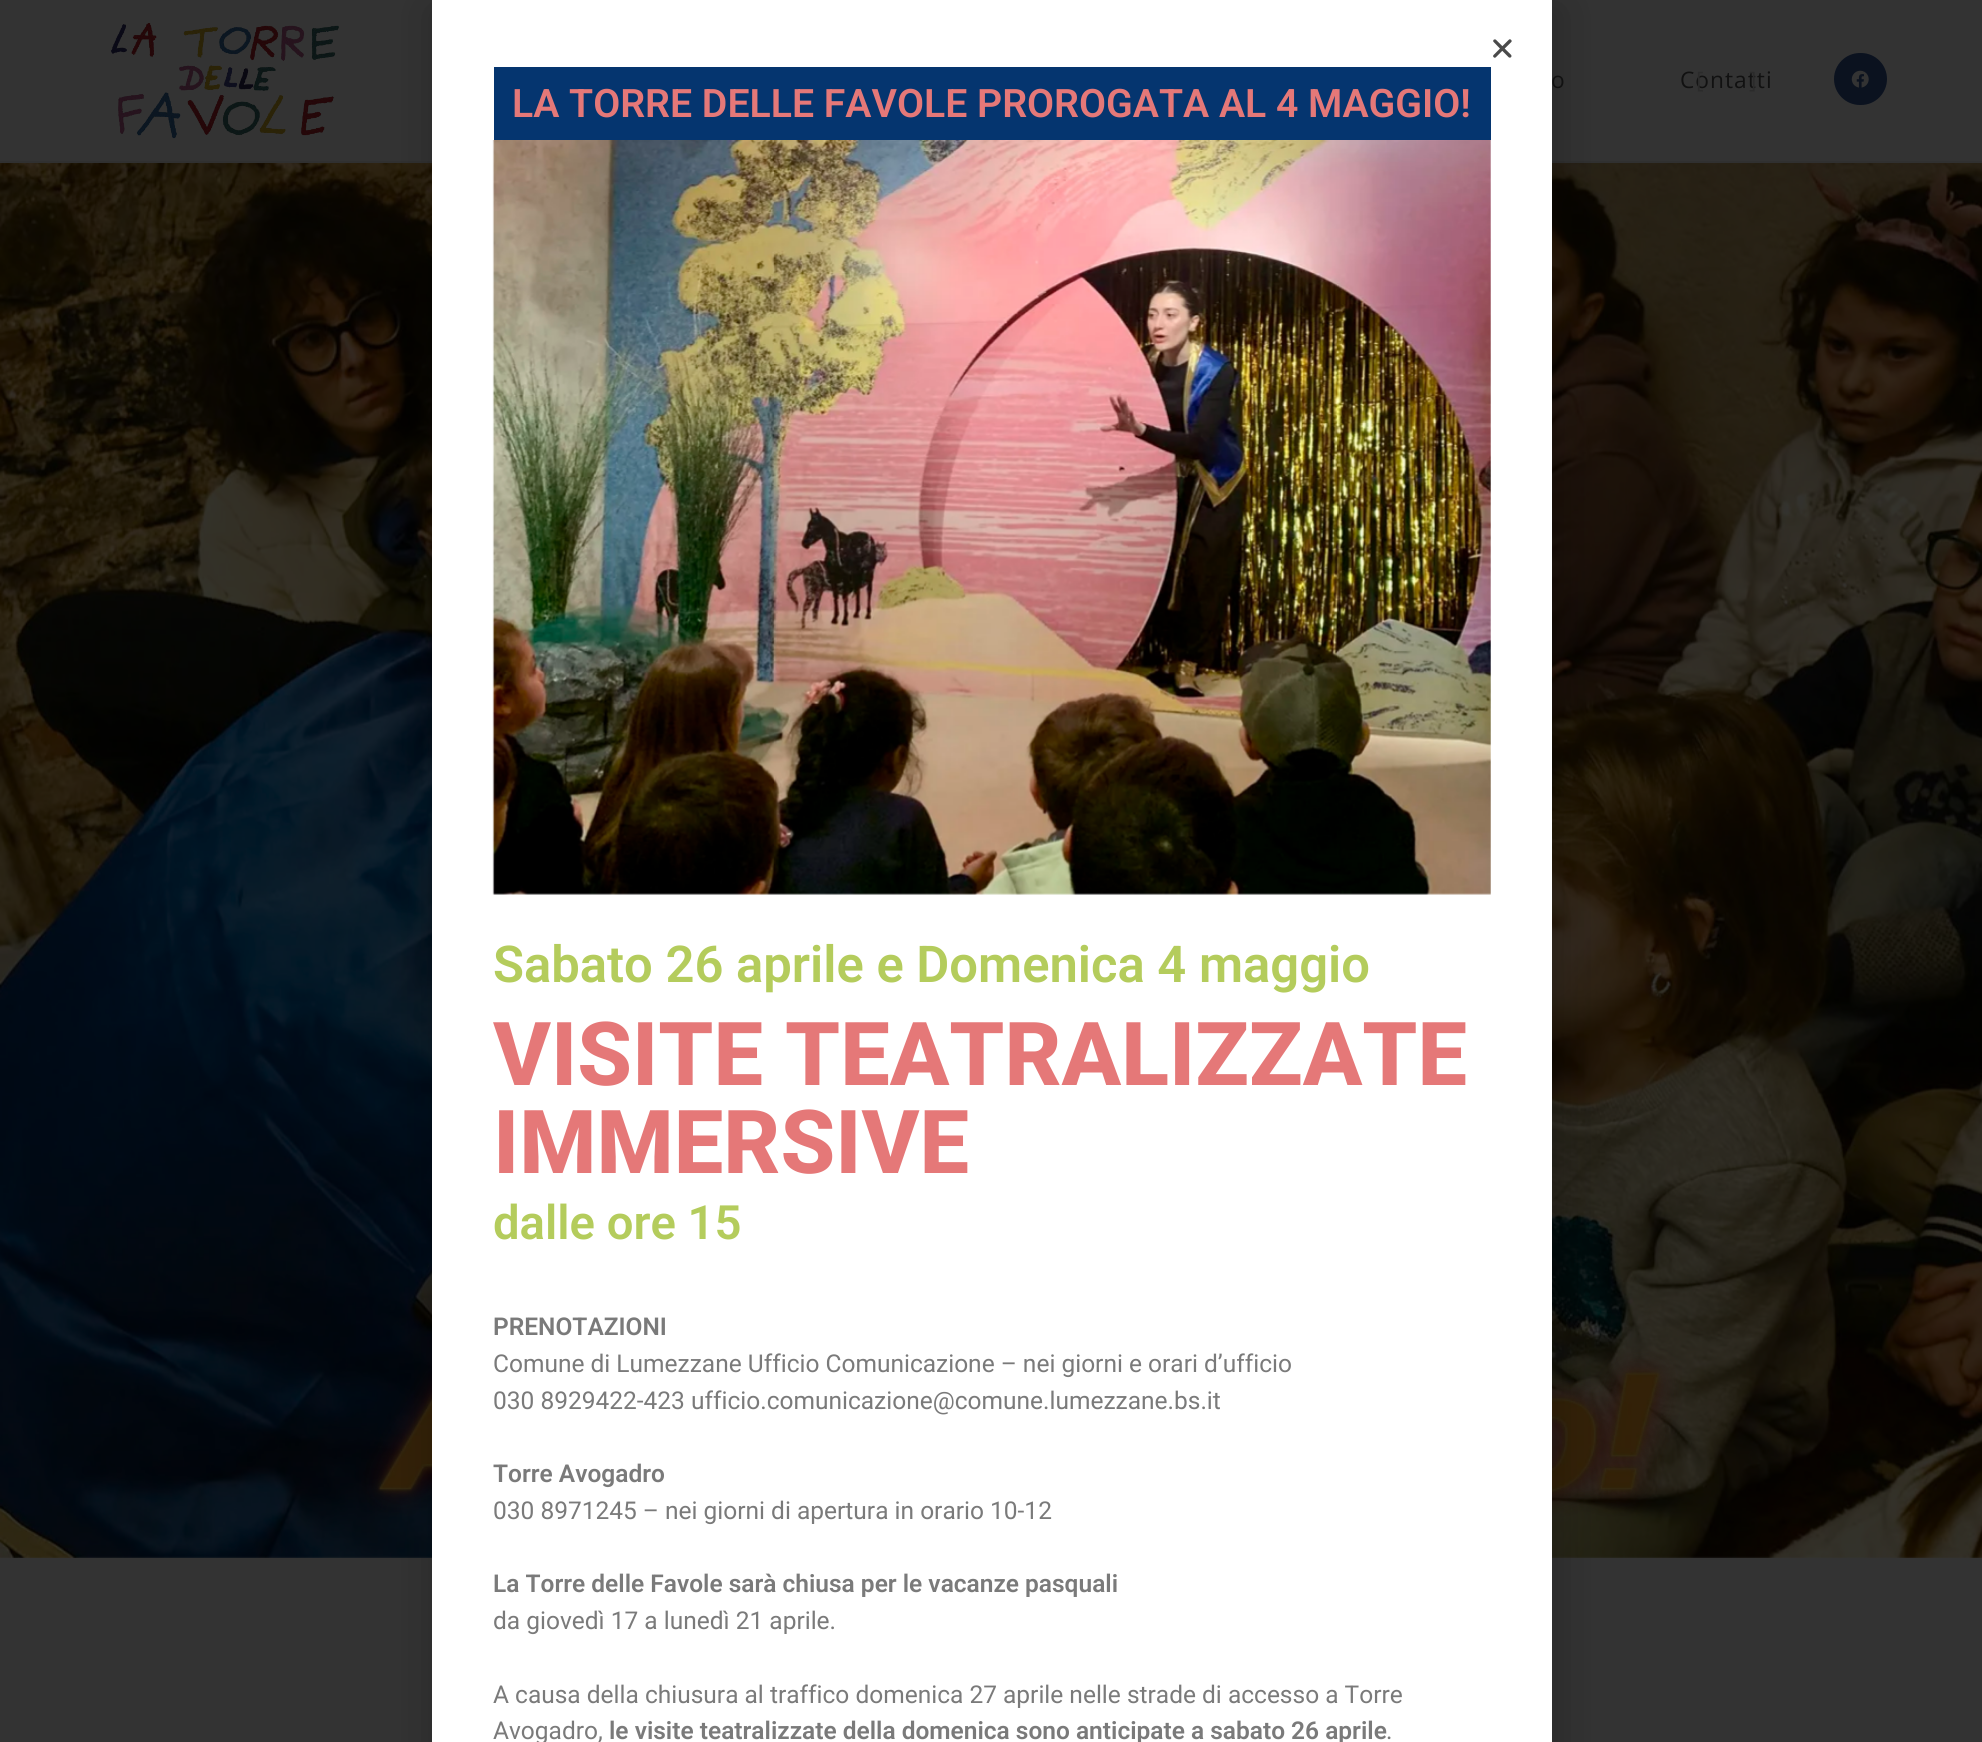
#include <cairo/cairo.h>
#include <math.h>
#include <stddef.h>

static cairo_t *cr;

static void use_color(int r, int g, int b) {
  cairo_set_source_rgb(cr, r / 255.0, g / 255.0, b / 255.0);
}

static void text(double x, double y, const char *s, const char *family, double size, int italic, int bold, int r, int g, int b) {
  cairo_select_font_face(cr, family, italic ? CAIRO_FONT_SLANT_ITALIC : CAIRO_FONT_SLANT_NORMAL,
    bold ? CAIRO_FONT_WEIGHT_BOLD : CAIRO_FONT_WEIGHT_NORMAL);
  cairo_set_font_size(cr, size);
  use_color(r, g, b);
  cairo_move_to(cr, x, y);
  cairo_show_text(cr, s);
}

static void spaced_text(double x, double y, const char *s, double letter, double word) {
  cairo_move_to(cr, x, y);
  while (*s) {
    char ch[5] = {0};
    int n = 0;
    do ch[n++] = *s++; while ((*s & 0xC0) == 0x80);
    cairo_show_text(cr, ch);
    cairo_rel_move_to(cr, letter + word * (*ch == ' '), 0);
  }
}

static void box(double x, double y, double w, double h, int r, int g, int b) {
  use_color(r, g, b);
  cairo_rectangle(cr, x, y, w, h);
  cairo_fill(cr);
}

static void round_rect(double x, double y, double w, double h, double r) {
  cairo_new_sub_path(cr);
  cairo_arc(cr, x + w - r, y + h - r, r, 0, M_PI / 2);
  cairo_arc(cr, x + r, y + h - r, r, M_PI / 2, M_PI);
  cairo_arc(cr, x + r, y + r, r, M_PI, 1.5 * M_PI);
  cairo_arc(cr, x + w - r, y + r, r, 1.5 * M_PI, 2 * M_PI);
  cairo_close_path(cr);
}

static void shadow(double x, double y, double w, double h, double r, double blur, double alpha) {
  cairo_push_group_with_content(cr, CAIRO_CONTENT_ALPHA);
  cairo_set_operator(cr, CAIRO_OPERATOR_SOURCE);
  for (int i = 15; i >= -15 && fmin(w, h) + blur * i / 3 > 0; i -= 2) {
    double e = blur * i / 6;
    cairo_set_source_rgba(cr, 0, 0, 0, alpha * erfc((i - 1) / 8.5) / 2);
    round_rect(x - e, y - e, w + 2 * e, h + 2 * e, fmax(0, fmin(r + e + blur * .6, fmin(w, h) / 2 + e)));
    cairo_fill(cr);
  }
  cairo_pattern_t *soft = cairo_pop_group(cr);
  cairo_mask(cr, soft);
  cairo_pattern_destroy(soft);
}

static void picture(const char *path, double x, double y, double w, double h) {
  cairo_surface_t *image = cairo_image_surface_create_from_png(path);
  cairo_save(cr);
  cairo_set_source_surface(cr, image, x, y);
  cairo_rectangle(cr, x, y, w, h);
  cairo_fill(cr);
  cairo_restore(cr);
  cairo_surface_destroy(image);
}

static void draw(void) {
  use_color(51, 51, 51);
  cairo_paint(cr);
  box(0, 161, 1982, 2, 48, 48, 48);
  picture("img_01.png", 111, 23, 228, 116);
  use_color(11, 18, 31);
  round_rect(1834, 53, 53, 52, 26);
  cairo_fill(cr);
  picture("img_02.png", 1851, 70, 18, 18);
  picture("img_03.png", 0, 163, 1982, 1395);
  picture("img_04.png", 359, 1346, 1323, 171);
  use_color(0, 0, 0);
  shadow(431, 9, 1130, 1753, 0, 20, 0.2);
  box(432, 0, 1120, 1742, 255, 255, 255);
  picture("img_05.png", 1493, 39, 19, 19);
  box(494, 67, 997, 73, 5, 53, 111);
  picture("img_06.png", 492, 140, 999, 755);
  cairo_select_font_face(cr, "Open Sans", CAIRO_FONT_SLANT_NORMAL, CAIRO_FONT_WEIGHT_NORMAL);
  cairo_set_font_size(cr, 22.75);
  use_color(17, 17, 17);
  spaced_text(1551, 88, "o", 1, 0);
  spaced_text(1680, 88, "Contatti", 1, 0);
  use_color(43, 43, 43);
  spaced_text(1696, 88, "[", 1, 0);
  spaced_text(1749, 88, "]", 1, 0);
  text(512, 117, "LA TORRE DELLE FAVOLE PROROGATA AL 4 MAGGIO!", "Roboto SemiBold", 39.2, 0, 0, 229, 120, 120);
  text(493, 982, "Sabato 26 aprile e Domenica 4 maggio", "Roboto SemiBold", 50.75, 0, 0, 180, 204, 92);
  text(493, 1085, "VISITE TEATRALIZZATE", "Roboto ExtraBold", 88.25, 0, 0, 229, 120, 120);
  text(493, 1173, "IMMERSIVE", "Roboto ExtraBold", 88.25, 0, 0, 229, 120, 120);
  text(493, 1239, "dalle ore 15", "Roboto SemiBold", 47.25, 0, 0, 180, 204, 92);
  text(493, 1335, "PRENOTAZIONI", "Roboto SemiBold", 24.5, 0, 0, 122, 122, 122);
  text(493, 1372, "Comune di Lumezzane Ufficio Comunicazione – nei giorni e orari d’ufficio", "Roboto", 24.5, 0, 0, 122, 122, 122);
  text(493, 1409, "030 8929422-423 ufficio.comunicazione@comune.lumezzane.bs.it", "Roboto", 24.5, 0, 0, 122, 122, 122);
  text(493, 1482, "Torre Avogadro", "Roboto SemiBold", 24.5, 0, 0, 122, 122, 122);
  text(493, 1519, "030 8971245 – nei giorni di apertura in orario 10-12", "Roboto", 24.5, 0, 0, 122, 122, 122);
  text(493, 1592, "La Torre delle Favole sarà chiusa per le vacanze pasquali", "Roboto SemiBold", 24.5, 0, 0, 122, 122, 122);
  text(493, 1629, "da giovedì 17 a lunedì 21 aprile.", "Roboto", 24.5, 0, 0, 122, 122, 122);
  text(493, 1703, "A causa della chiusura al traffico domenica 27 aprile nelle strade di accesso a Torre", "Roboto", 24.5, 0, 0, 122, 122, 122);
  text(493, 1739, "Avogadro,", "Roboto", 24.5, 0, 0, 122, 122, 122);
  text(609, 1739, "le visite teatralizzate della domenica sono anticipate a sabato 26 aprile", "Roboto SemiBold", 24.5, 0, 0, 122, 122, 122);
  text(1386, 1739, ".", "Roboto", 24.5, 0, 0, 122, 122, 122);
}

int main(void) {
  cairo_surface_t *surface = cairo_image_surface_create(CAIRO_FORMAT_RGB24, 1982, 1742);
  cr = cairo_create(surface);
  cairo_font_options_t *options = cairo_font_options_create();
  cairo_font_options_set_hint_metrics(options, CAIRO_HINT_METRICS_OFF);
  cairo_font_options_set_hint_style(options, CAIRO_HINT_STYLE_NONE);
  cairo_set_font_options(cr, options);
  cairo_set_miter_limit(cr, 4);
  draw();
  cairo_surface_write_to_png(surface, "out.png");
  cairo_font_options_destroy(options);
  cairo_destroy(cr);
  cairo_surface_destroy(surface);
  return 0;
}
